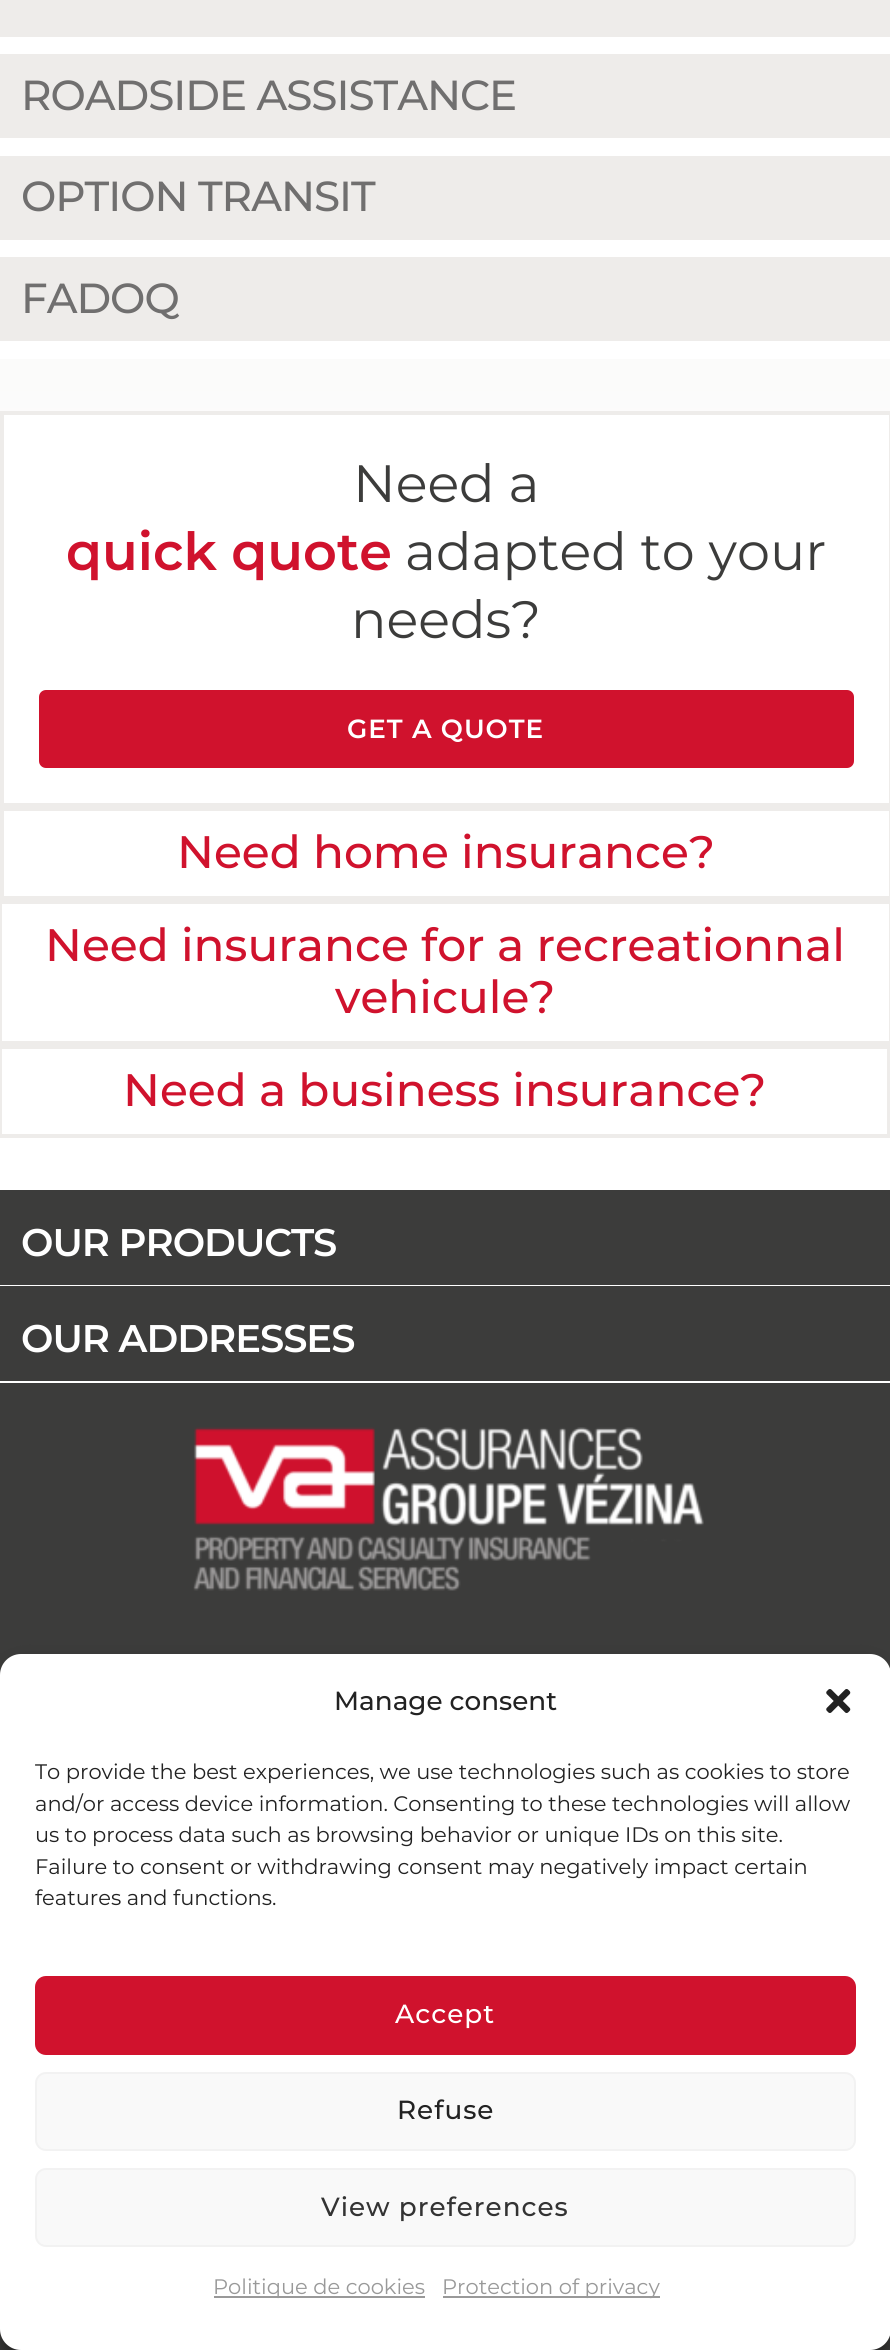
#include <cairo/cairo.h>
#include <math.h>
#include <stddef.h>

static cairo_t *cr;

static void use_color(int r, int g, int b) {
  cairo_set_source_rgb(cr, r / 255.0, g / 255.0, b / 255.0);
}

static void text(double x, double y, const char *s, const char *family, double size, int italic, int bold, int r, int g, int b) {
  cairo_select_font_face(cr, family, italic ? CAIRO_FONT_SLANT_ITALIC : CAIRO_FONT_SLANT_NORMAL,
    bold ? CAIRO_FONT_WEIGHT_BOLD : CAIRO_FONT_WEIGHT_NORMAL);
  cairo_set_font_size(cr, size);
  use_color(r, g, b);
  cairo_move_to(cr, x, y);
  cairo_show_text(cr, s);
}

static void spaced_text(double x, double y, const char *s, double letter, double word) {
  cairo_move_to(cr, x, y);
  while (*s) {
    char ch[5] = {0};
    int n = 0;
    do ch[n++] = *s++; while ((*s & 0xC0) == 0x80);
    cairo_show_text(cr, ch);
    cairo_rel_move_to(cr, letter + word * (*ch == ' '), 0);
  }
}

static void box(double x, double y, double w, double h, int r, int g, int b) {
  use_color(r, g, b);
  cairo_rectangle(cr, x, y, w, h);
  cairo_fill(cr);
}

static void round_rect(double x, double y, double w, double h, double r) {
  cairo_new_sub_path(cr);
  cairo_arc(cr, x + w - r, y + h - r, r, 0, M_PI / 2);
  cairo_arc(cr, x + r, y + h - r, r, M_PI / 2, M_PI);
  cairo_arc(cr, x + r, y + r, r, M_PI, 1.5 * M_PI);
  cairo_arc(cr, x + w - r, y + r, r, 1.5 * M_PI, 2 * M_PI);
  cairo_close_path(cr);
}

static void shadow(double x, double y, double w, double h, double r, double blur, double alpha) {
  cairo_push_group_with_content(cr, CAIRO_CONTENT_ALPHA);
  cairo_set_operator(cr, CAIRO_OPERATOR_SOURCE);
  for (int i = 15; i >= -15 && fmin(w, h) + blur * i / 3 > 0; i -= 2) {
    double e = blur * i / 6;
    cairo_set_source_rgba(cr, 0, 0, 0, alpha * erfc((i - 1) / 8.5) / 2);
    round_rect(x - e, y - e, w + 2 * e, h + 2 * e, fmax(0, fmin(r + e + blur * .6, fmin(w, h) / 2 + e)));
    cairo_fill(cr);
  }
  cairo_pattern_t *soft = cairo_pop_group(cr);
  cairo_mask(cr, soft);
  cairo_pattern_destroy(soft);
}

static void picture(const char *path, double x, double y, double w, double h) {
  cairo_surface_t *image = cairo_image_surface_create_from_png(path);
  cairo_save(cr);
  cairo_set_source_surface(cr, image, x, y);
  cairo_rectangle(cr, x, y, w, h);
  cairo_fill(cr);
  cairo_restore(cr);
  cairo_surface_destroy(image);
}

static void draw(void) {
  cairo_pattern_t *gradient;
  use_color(255, 255, 255);
  cairo_paint(cr);
  gradient = cairo_pattern_create_linear(445, -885, 445, 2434);
  cairo_pattern_add_color_stop_rgba(gradient, 0, 0.933, 0.925, 0.918, 1);
  cairo_pattern_add_color_stop_rgba(gradient, 0.49, 1, 1, 1, 1);
  cairo_set_source(cr, gradient);
  cairo_pattern_destroy(gradient);
  cairo_rectangle(cr, 0, 359, 890, 189);
  cairo_fill(cr);
  box(0, 0, 890, 37, 238, 236, 234);
  box(0, 54, 890, 84, 238, 236, 234);
  box(0, 156, 890, 84, 238, 236, 234);
  box(0, 257, 890, 84, 238, 236, 234);
  box(2, 415, 887, 133, 255, 255, 255);
  box(0, 411, 890, 4, 238, 236, 234);
  box(889, 411, 1, 396, 238, 236, 234);
  box(0, 803, 890, 8, 238, 236, 234);
  box(0, 411, 4, 396, 238, 236, 234);
  use_color(208, 18, 45);
  round_rect(39, 690, 815, 78, 7);
  cairo_fill(cr);
  box(889, 807, 1, 93, 238, 236, 234);
  box(0, 896, 890, 8, 238, 236, 234);
  box(0, 807, 4, 93, 238, 236, 234);
  box(889, 900, 1, 145, 238, 236, 234);
  box(0, 1041, 890, 8, 238, 236, 234);
  box(0, 900, 2, 145, 238, 236, 234);
  box(887, 1045, 3, 93, 238, 236, 234);
  box(0, 1134, 890, 4, 238, 236, 234);
  box(0, 1045, 2, 93, 238, 236, 234);
  box(0, 1190, 890, 485, 60, 60, 59);
  box(0, 1285, 890, 1, 255, 255, 255);
  box(0, 1381, 890, 2, 255, 255, 255);
  picture("img_01.png", 193, 1427, 511, 164);
  box(0, 2329, 890, 21, 60, 60, 59);
  use_color(0, 0, 0);
  shadow(0, 1664, 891, 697, 21, 5, 0.23);
  shadow(0, 1671, 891, 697, 21, 17.5, 0.19);
  use_color(255, 255, 255);
  round_rect(0, 1654, 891, 696, 21);
  cairo_fill(cr);
  picture("img_02.png", 826, 1689, 25, 24);
  use_color(208, 18, 45);
  round_rect(36, 1977, 819, 77, 10);
  cairo_fill_preserve(cr);
  cairo_stroke(cr);
  use_color(249, 249, 249);
  round_rect(36, 2073, 819, 77, 10);
  cairo_fill_preserve(cr);
  use_color(242, 242, 242);
  cairo_stroke(cr);
  use_color(249, 249, 249);
  round_rect(36, 2169, 819, 77, 10);
  cairo_fill_preserve(cr);
  use_color(242, 242, 242);
  cairo_stroke(cr);
  box(214, 2296, 211, 2, 153, 153, 153);
  box(443, 2296, 217, 2, 153, 153, 153);
  cairo_select_font_face(cr, "Montserrat Medium", CAIRO_FONT_SLANT_NORMAL, CAIRO_FONT_WEIGHT_NORMAL);
  cairo_set_font_size(cr, 42);
  use_color(112, 111, 111);
  spaced_text(21, 110, "ROADSIDE ASSISTANCE", -1, 0);
  spaced_text(21, 211, "OPTION TRANSIT", -1, 0);
  spaced_text(21, 313, "FADOQ", -1, 0);
  text(353, 502, "Need a", "Montserrat", 52.5, 0, 0, 60, 60, 59);
  text(66, 570, "quick quote", "Montserrat SemiBold", 52.5, 0, 0, 208, 18, 45);
  text(405, 570, "adapted to your", "Montserrat", 52.5, 0, 0, 60, 60, 59);
  text(351, 638, "needs?", "Montserrat", 52.5, 0, 0, 60, 60, 59);
  cairo_select_font_face(cr, "Montserrat SemiBold", CAIRO_FONT_SLANT_NORMAL, CAIRO_FONT_WEIGHT_NORMAL);
  cairo_set_font_size(cr, 26.25);
  use_color(255, 255, 255);
  spaced_text(347, 738, "GET A QUOTE", 1, 0);
  text(177, 868, "Need home insurance?", "Montserrat Medium", 45.5, 0, 0, 208, 18, 45);
  text(45, 961, "Need insurance for a recreationnal", "Montserrat Medium", 45.5, 0, 0, 208, 18, 45);
  text(335, 1013, "vehicule?", "Montserrat Medium", 45.5, 0, 0, 208, 18, 45);
  text(123, 1106, "Need a business insurance?", "Montserrat Medium", 45.5, 0, 0, 208, 18, 45);
  cairo_select_font_face(cr, "Montserrat SemiBold", CAIRO_FONT_SLANT_NORMAL, CAIRO_FONT_WEIGHT_NORMAL);
  cairo_set_font_size(cr, 38.5);
  use_color(255, 255, 255);
  spaced_text(21, 1256, "OUR PRODUCTS", -1, 0);
  spaced_text(21, 1352, "OUR ADDRESSES", -1, 0);
  text(334, 1710, "Manage consent", "Montserrat Medium", 26.25, 0, 0, 34, 34, 34);
  text(35, 1779, "To provide the best experiences, we use technologies such as cookies to store", "Montserrat", 21, 0, 0, 34, 34, 34);
  text(35, 1811, "and/or access device information. Consenting to these technologies will allow", "Montserrat", 21, 0, 0, 34, 34, 34);
  text(35, 1842, "us to process data such as browsing behavior or unique IDs on this site.", "Montserrat", 21, 0, 0, 34, 34, 34);
  text(35, 1874, "Failure to consent or withdrawing consent may negatively impact certain", "Montserrat", 21, 0, 0, 34, 34, 34);
  text(35, 1905, "features and functions.", "Montserrat", 21, 0, 0, 34, 34, 34);
  cairo_select_font_face(cr, "Montserrat Medium", CAIRO_FONT_SLANT_NORMAL, CAIRO_FONT_WEIGHT_NORMAL);
  cairo_set_font_size(cr, 26.25);
  use_color(255, 255, 255);
  spaced_text(395, 2023, "Accept", 1, 0);
  use_color(34, 34, 34);
  spaced_text(397, 2119, "Refuse", 1, 0);
  use_color(51, 51, 51);
  spaced_text(321, 2216, "View preferences", 1, 0);
  text(213, 2294, "Politique de cookies", "Montserrat", 21, 0, 0, 153, 153, 153);
  text(442, 2294, "Protection of privacy", "Montserrat", 21, 0, 0, 153, 153, 153);
}

int main(void) {
  cairo_surface_t *surface = cairo_image_surface_create(CAIRO_FORMAT_RGB24, 890, 2350);
  cr = cairo_create(surface);
  cairo_font_options_t *options = cairo_font_options_create();
  cairo_font_options_set_hint_metrics(options, CAIRO_HINT_METRICS_OFF);
  cairo_font_options_set_hint_style(options, CAIRO_HINT_STYLE_NONE);
  cairo_set_font_options(cr, options);
  cairo_set_miter_limit(cr, 4);
  draw();
  cairo_surface_write_to_png(surface, "out.png");
  cairo_font_options_destroy(options);
  cairo_destroy(cr);
  cairo_surface_destroy(surface);
  return 0;
}
